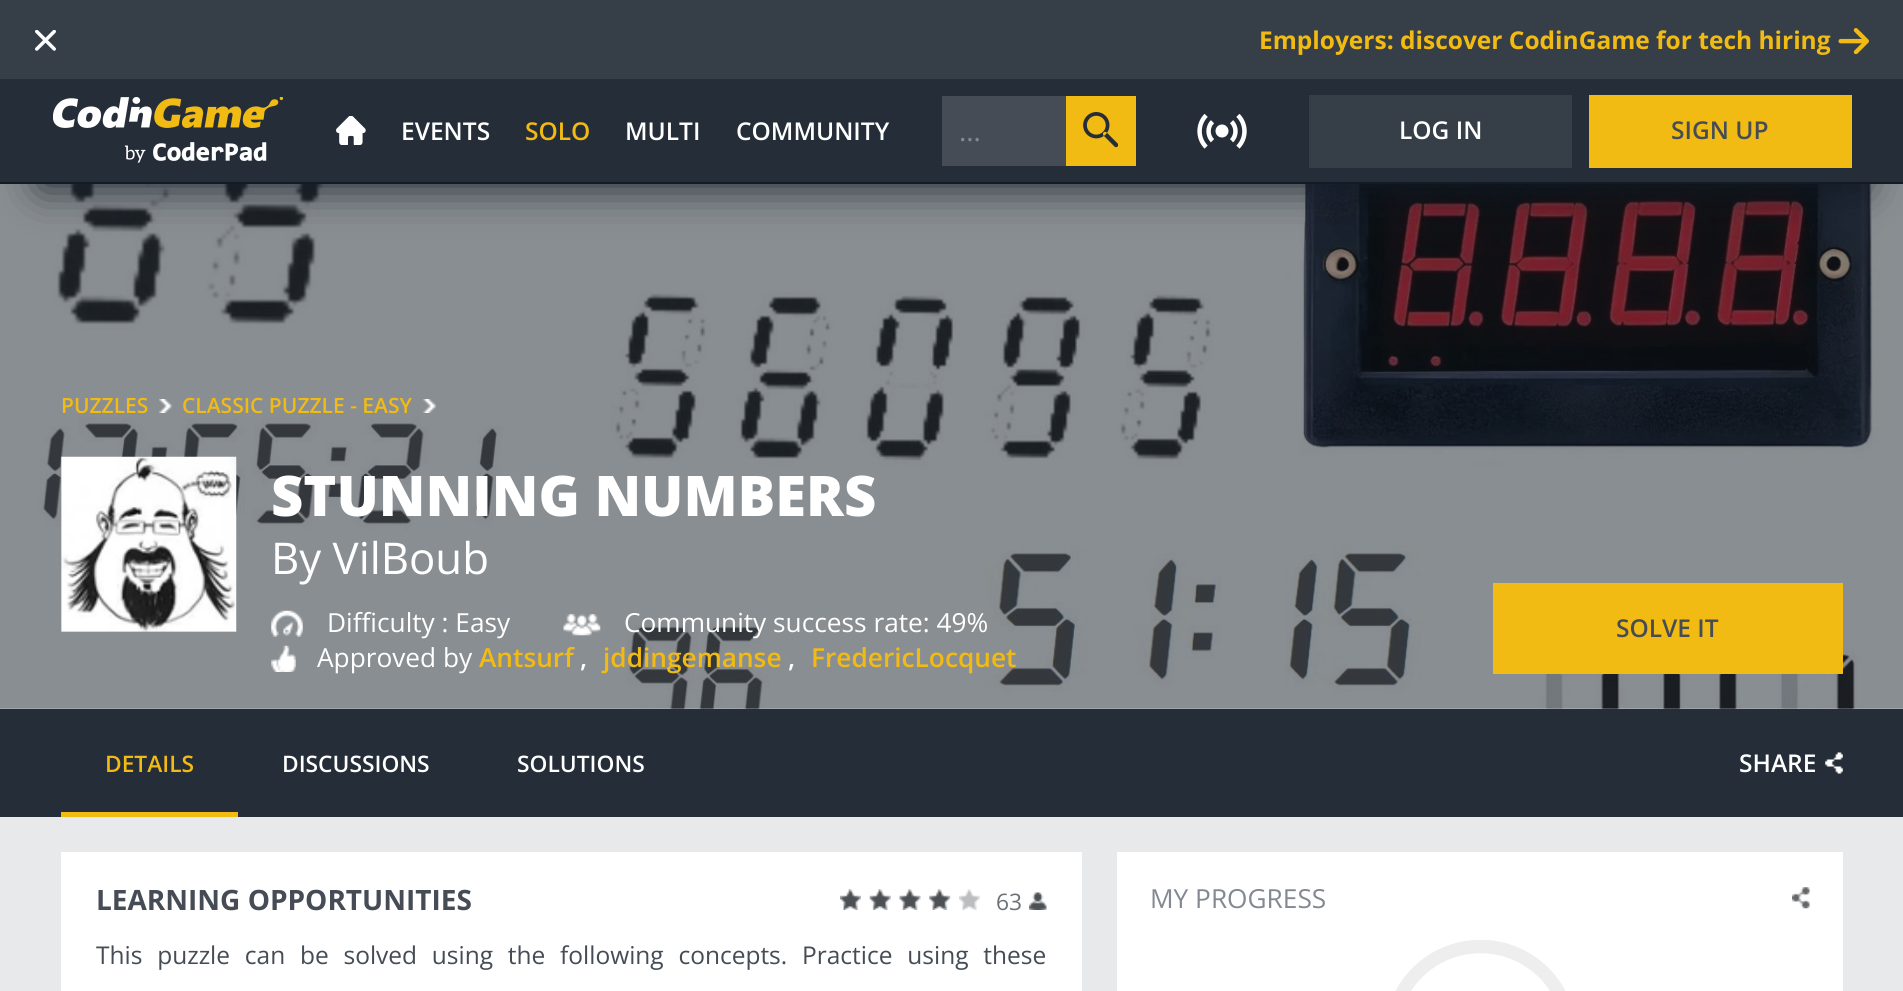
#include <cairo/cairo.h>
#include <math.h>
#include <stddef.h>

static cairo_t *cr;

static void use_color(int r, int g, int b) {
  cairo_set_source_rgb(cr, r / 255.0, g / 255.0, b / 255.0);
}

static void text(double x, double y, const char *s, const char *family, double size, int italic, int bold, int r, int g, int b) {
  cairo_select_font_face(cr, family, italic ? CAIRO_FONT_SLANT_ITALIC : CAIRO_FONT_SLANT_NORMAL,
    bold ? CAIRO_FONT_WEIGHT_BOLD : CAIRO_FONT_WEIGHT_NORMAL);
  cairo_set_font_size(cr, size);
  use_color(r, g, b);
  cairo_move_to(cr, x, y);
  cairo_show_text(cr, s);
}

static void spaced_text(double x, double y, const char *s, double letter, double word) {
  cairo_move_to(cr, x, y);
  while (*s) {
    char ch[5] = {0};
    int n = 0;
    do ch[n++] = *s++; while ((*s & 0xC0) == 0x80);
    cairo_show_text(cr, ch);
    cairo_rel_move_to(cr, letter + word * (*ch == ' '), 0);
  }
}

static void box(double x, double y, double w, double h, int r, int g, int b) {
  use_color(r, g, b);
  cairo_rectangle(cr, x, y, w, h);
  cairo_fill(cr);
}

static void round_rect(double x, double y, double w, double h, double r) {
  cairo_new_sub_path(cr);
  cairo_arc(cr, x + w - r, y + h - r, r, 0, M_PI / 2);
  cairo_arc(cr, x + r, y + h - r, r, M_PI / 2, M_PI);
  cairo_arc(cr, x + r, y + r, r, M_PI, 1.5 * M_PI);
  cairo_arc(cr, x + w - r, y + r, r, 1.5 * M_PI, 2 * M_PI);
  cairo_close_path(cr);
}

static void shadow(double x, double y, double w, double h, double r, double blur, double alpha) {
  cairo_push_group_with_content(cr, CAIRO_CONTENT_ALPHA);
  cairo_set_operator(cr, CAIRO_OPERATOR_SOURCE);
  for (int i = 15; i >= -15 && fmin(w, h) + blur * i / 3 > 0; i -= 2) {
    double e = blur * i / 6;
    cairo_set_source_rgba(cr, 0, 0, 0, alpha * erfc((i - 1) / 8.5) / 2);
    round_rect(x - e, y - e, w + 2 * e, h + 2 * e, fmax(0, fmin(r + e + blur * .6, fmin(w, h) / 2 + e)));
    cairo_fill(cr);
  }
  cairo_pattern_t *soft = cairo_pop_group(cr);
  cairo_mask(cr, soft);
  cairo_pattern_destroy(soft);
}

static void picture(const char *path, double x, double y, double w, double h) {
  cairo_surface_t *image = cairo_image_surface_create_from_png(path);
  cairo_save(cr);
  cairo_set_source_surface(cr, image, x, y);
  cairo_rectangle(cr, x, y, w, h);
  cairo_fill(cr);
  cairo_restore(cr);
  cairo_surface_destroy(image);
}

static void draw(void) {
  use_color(54, 62, 72);
  cairo_paint(cr);
  picture("img_01.png", 35, 30, 21, 21);
  picture("img_02.png", 1838, 28, 31, 26);
  box(0, 708, 1903, 283, 231, 233, 235);
  picture("img_07.png", 0, 184, 1903, 525);
  use_color(19, 28, 37);
  shadow(44, 166, 1816, 18, 0, 22, 1);
  box(0, 79, 1903, 103, 37, 46, 56);
  box(0, 182, 1903, 2, 19, 28, 37);
  picture("img_03.png", 53, 97, 231, 66);
  picture("img_04.png", 336, 116, 30, 29);
  box(942, 96, 124, 70, 69, 76, 85);
  box(1066, 96, 70, 70, 242, 187, 19);
  picture("img_05.png", 1083, 112, 35, 36);
  picture("img_06.png", 1197, 114, 50, 35);
  box(1309, 95, 263, 73, 54, 63, 72);
  box(1589, 95, 263, 73, 242, 187, 19);
  picture("img_08.png", 159, 399, 13, 14);
  picture("img_09.png", 423, 399, 13, 14);
  cairo_set_source_rgba(cr, 0.271, 0.298, 0.333, 0.7);
  cairo_rectangle(cr, 61, 457, 175, 175);
  cairo_fill(cr);
  picture("img_10.png", 61, 456, 176, 176);
  picture("img_11.png", 271, 610, 32, 27);
  picture("img_12.png", 563, 614, 38, 22);
  picture("img_13.png", 271, 645, 25, 27);
  box(1493, 583, 350, 91, 242, 187, 19);
  box(0, 709, 1903, 108, 37, 46, 56);
  box(61, 812, 177, 5, 242, 187, 19);
  picture("img_14.png", 1825, 752, 18, 22);
  box(61, 852, 1021, 139, 255, 255, 255);
  picture("img_15.png", 840, 889, 21, 21);
  picture("img_16.png", 869, 889, 22, 21);
  picture("img_17.png", 899, 889, 22, 21);
  picture("img_18.png", 929, 889, 22, 21);
  picture("img_19.png", 959, 889, 21, 21);
  picture("img_20.png", 1029, 892, 18, 18);
  box(1117, 852, 726, 139, 255, 255, 255);
  picture("img_21.png", 1792, 887, 18, 22);
  cairo_save(cr);
  cairo_rectangle(cr, 1384, 940, 193, 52);
  cairo_clip(cr);
  cairo_arc(cr, 1480.5, 1036, 89.5, 0, 2 * M_PI);
  use_color(238, 238, 238);
  cairo_set_line_width(cr, 13.5);
  cairo_stroke(cr);
  cairo_restore(cr);
  text(1259, 49, "Employers: discover CodinGame for tech hiring", "Open Sans", 24.5, 0, 1, 242, 187, 19);
  text(401, 140, "EVENTS", "Open Sans SemiBold", 24.5, 0, 0, 255, 255, 255);
  text(525, 140, "SOLO", "Open Sans SemiBold", 24.5, 0, 0, 242, 187, 19);
  text(625, 140, "MULTI", "Open Sans SemiBold", 24.5, 0, 0, 255, 255, 255);
  text(736, 140, "COMMUNITY", "Open Sans SemiBold", 24.5, 0, 0, 255, 255, 255);
  text(959, 141, "…", "Open Sans", 28, 0, 0, 131, 136, 145);
  text(1399, 139, "LOG IN", "Open Sans SemiBold", 24.5, 0, 0, 255, 255, 255);
  text(1671, 139, "SIGN UP", "Open Sans SemiBold", 24.5, 0, 0, 69, 76, 85);
  text(61, 413, "PUZZLES", "Open Sans SemiBold", 21, 0, 0, 242, 187, 19);
  text(182, 413, "CLASSIC PUZZLE - EASY", "Open Sans SemiBold", 21, 0, 0, 242, 187, 19);
  text(271, 516, "STUNNING NUMBERS", "Open Sans ExtraBold", 56, 0, 0, 255, 255, 255);
  text(271, 574, "By VilBoub", "Open Sans", 43.75, 0, 0, 255, 255, 255);
  text(327, 632, "Difficulty : Easy", "Open Sans", 26.25, 0, 0, 255, 255, 255);
  text(624, 632, "Community success rate: 49%", "Open Sans", 26.25, 0, 0, 255, 255, 255);
  text(317, 667, "Approved by", "Open Sans", 26.25, 0, 0, 255, 255, 255);
  text(479, 667, "Antsurf", "Open Sans SemiBold", 26.25, 0, 0, 242, 187, 19);
  text(580, 667, ",", "Open Sans SemiBold", 26.25, 0, 0, 255, 255, 255);
  text(603, 667, "jddingemanse", "Open Sans SemiBold", 26.25, 0, 0, 242, 187, 19);
  text(788, 667, ",", "Open Sans SemiBold", 26.25, 0, 0, 255, 255, 255);
  text(811, 667, "FredericLocquet", "Open Sans SemiBold", 26.25, 0, 0, 242, 187, 19);
  text(1616, 637, "SOLVE IT", "Open Sans SemiBold", 24.5, 0, 0, 69, 76, 85);
  text(105, 772, "DETAILS", "Open Sans SemiBold", 22.75, 0, 0, 242, 187, 19);
  text(282, 772, "DISCUSSIONS", "Open Sans SemiBold", 22.75, 0, 0, 255, 255, 255);
  text(517, 772, "SOLUTIONS", "Open Sans SemiBold", 22.75, 0, 0, 255, 255, 255);
  text(1739, 772, "SHARE", "Open Sans SemiBold", 24.5, 0, 0, 255, 255, 255);
  text(96, 910, "LEARNING OPPORTUNITIES", "Open Sans", 28, 0, 1, 69, 76, 85);
  cairo_select_font_face(cr, "Open Sans", CAIRO_FONT_SLANT_NORMAL, CAIRO_FONT_WEIGHT_NORMAL);
  cairo_set_font_size(cr, 24.5);
  spaced_text(96, 964, "This puzzle can be solved using the following concepts. Practice using these", 0, 8.4);
  text(996, 910, "63", "Open Sans", 22.75, 0, 0, 106, 112, 119);
  text(1150, 908, "MY PROGRESS", "Open Sans", 26.25, 0, 0, 131, 136, 145);
}

int main(void) {
  cairo_surface_t *surface = cairo_image_surface_create(CAIRO_FORMAT_RGB24, 1903, 991);
  cr = cairo_create(surface);
  cairo_font_options_t *options = cairo_font_options_create();
  cairo_font_options_set_hint_metrics(options, CAIRO_HINT_METRICS_OFF);
  cairo_font_options_set_hint_style(options, CAIRO_HINT_STYLE_NONE);
  cairo_set_font_options(cr, options);
  cairo_set_miter_limit(cr, 4);
  draw();
  cairo_surface_write_to_png(surface, "out.png");
  cairo_font_options_destroy(options);
  cairo_destroy(cr);
  cairo_surface_destroy(surface);
  return 0;
}
